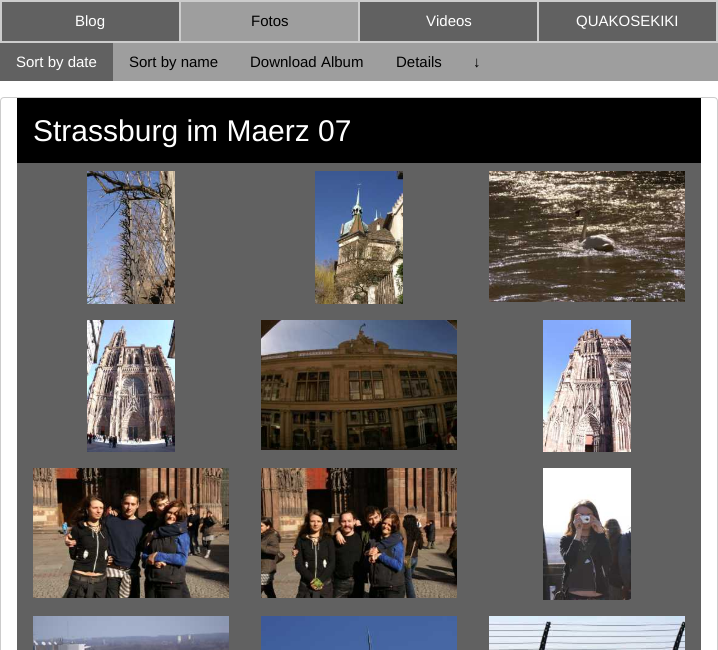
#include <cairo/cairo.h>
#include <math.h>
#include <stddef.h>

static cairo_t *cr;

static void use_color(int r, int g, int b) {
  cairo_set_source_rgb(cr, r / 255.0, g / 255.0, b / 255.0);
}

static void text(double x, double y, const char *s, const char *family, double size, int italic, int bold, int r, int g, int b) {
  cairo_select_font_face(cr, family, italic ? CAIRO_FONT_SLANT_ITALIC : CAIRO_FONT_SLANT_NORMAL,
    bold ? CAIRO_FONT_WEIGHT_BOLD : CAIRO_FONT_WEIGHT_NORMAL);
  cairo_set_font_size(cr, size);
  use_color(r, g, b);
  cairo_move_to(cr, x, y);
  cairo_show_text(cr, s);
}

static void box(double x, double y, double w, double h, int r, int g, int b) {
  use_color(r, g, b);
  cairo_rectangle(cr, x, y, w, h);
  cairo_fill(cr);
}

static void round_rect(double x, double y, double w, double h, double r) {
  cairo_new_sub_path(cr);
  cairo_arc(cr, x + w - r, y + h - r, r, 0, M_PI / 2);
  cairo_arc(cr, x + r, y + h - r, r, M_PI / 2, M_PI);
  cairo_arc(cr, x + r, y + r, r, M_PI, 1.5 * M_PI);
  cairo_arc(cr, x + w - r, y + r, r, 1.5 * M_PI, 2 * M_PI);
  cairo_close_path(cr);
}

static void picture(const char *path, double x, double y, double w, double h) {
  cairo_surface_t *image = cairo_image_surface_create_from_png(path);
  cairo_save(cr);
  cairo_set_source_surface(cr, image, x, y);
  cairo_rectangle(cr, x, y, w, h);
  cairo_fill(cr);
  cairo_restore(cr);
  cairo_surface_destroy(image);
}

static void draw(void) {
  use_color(255, 255, 255);
  cairo_paint(cr);
  box(2, 2, 714, 39, 97, 97, 97);
  cairo_rectangle(cr, 0.5, 0.5, 717, 42);
  use_color(204, 204, 204);
  cairo_set_line_width(cr, 1);
  cairo_stroke(cr);
  cairo_rectangle(cr, 1.5, 1.5, 178, 40);
  cairo_stroke(cr);
  use_color(158, 158, 158);
  cairo_rectangle(cr, 180.5, 1.5, 178, 40);
  cairo_fill_preserve(cr);
  use_color(204, 204, 204);
  cairo_stroke(cr);
  cairo_rectangle(cr, 359.5, 1.5, 178, 40);
  cairo_stroke(cr);
  cairo_rectangle(cr, 538.5, 1.5, 178, 40);
  cairo_stroke(cr);
  box(113, 43, 605, 38, 158, 158, 158);
  box(0, 43, 113, 38, 97, 97, 97);
  round_rect(0.5, 97.5, 717, 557, 3.5);
  use_color(204, 204, 204);
  cairo_stroke(cr);
  box(17, 98, 684, 65, 0, 0, 0);
  box(17, 163, 684, 487, 97, 97, 97);
  picture("img_01.png", 87, 171, 88, 133);
  picture("img_02.png", 315, 171, 88, 133);
  picture("img_03.png", 489, 171, 196, 131);
  picture("img_04.png", 87, 320, 88, 132);
  picture("img_05.png", 261, 320, 196, 130);
  picture("img_06.png", 543, 320, 88, 132);
  picture("img_07.png", 33, 468, 196, 130);
  picture("img_08.png", 261, 468, 196, 130);
  picture("img_09.png", 543, 468, 88, 132);
  picture("img_10.png", 33, 616, 196, 34);
  picture("img_11.png", 261, 616, 196, 34);
  picture("img_12.png", 489, 616, 196, 34);
  text(75, 26, "Blog", "Liberation Sans", 15, 0, 0, 255, 255, 255);
  text(251, 26, "Fotos", "Liberation Sans", 15, 0, 0, 0, 0, 0);
  text(426, 26, "Videos", "Liberation Sans", 15, 0, 0, 255, 255, 255);
  text(576, 26, "QUAKOSEKIKI", "Liberation Sans", 15, 0, 0, 255, 255, 255);
  text(16, 67, "Sort by date", "Liberation Sans", 15, 0, 0, 255, 255, 255);
  text(129, 67, "Sort by name", "Liberation Sans", 15, 0, 0, 0, 0, 0);
  text(250, 67, "Download Album", "Liberation Sans", 15, 0, 0, 0, 0, 0);
  text(396, 67, "Details", "Liberation Sans", 15, 0, 0, 0, 0, 0);
  text(473, 67, "↓", "Liberation Sans", 15, 0, 0, 0, 0, 0);
  text(33, 141, "Strassburg im Maerz 07", "Liberation Sans", 30, 0, 0, 255, 255, 255);
}

int main(void) {
  cairo_surface_t *surface = cairo_image_surface_create(CAIRO_FORMAT_RGB24, 718, 650);
  cr = cairo_create(surface);
  cairo_font_options_t *options = cairo_font_options_create();
  cairo_font_options_set_hint_metrics(options, CAIRO_HINT_METRICS_OFF);
  cairo_font_options_set_hint_style(options, CAIRO_HINT_STYLE_NONE);
  cairo_set_font_options(cr, options);
  cairo_set_miter_limit(cr, 4);
  draw();
  cairo_surface_write_to_png(surface, "out.png");
  cairo_font_options_destroy(options);
  cairo_destroy(cr);
  cairo_surface_destroy(surface);
  return 0;
}
